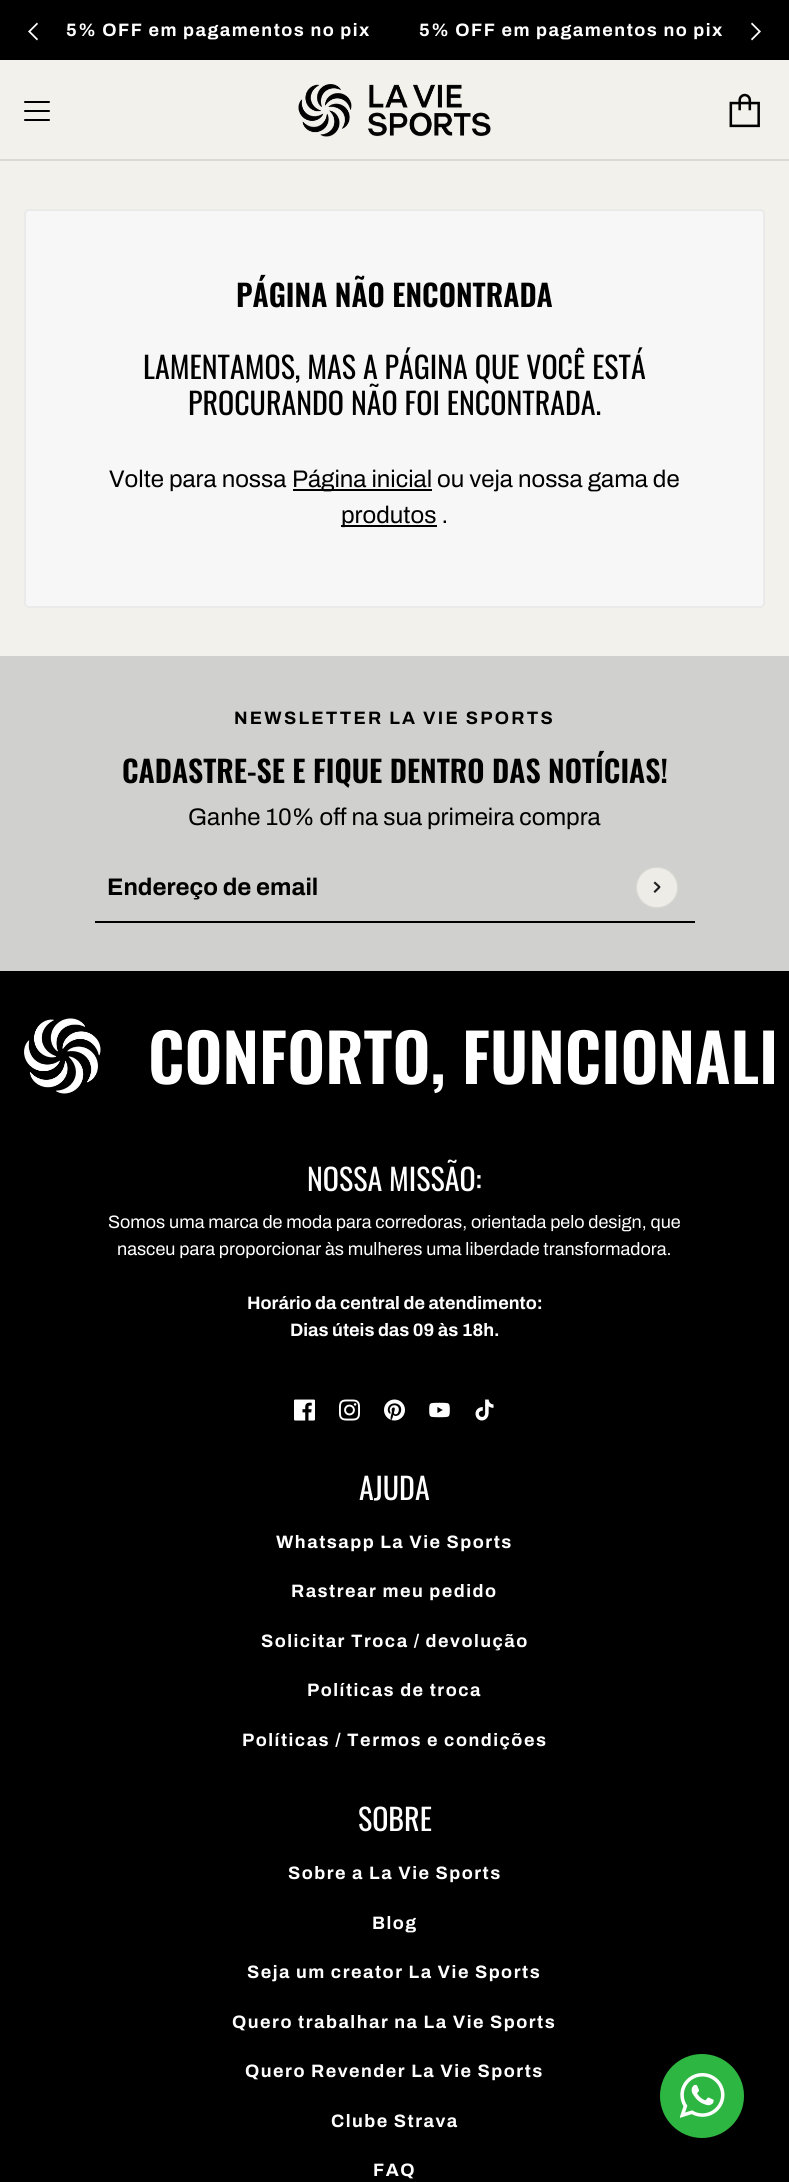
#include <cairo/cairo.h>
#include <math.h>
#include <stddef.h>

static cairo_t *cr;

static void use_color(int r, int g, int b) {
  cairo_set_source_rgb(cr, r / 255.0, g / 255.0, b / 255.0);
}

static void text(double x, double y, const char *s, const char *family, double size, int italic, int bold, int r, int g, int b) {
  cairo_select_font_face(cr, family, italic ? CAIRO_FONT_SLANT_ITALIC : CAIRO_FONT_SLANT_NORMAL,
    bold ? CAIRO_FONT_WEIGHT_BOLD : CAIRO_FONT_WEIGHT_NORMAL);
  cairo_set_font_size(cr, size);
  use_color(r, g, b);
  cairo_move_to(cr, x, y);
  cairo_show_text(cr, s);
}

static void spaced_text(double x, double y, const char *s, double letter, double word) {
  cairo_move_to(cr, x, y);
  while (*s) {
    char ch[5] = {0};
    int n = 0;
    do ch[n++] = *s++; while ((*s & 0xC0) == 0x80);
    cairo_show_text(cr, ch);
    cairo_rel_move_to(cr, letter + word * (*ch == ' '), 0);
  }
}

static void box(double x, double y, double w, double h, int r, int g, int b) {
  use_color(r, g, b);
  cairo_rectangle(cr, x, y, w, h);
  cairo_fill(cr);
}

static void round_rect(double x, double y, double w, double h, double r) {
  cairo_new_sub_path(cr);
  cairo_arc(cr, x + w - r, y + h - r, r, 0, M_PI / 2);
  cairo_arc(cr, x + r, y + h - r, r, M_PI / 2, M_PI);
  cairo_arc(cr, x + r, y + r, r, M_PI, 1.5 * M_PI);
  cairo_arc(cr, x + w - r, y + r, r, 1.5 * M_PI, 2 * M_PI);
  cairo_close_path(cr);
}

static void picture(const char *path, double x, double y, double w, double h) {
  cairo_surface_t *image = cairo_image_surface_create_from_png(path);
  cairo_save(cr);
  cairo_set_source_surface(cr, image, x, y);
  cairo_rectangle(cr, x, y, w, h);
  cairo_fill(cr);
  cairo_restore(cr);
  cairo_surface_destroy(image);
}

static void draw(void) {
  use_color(243, 241, 235);
  cairo_paint(cr);
  box(0, 0, 789, 60, 0, 0, 0);
  use_color(255, 255, 255);
  cairo_new_path(cr);
  cairo_move_to(cr, 30.5, 31.5);
  cairo_line_to(cr, 38, 39);
  cairo_line_to(cr, 37, 40.5);
  cairo_line_to(cr, 28, 31.5);
  cairo_line_to(cr, 37, 22.5);
  cairo_line_to(cr, 38, 24);
  cairo_close_path(cr);
  cairo_fill(cr);
  cairo_new_path(cr);
  cairo_move_to(cr, 758.5, 31.5);
  cairo_line_to(cr, 751, 24);
  cairo_line_to(cr, 752, 22.5);
  cairo_line_to(cr, 761, 31.5);
  cairo_line_to(cr, 752, 40.5);
  cairo_line_to(cr, 751, 39);
  cairo_close_path(cr);
  cairo_fill(cr);
  use_color(0, 0, 0);
  round_rect(24, 101, 26, 2, 1);
  cairo_fill(cr);
  round_rect(24, 110, 26, 2, 1);
  cairo_fill(cr);
  round_rect(24, 119, 26, 2, 1);
  cairo_fill(cr);
  picture("img_01.png", 298, 84, 193, 53);
  picture("img_02.png", 729, 93, 31, 35);
  box(0, 159, 789, 2, 219, 217, 212);
  use_color(247, 247, 247);
  round_rect(25, 210, 739, 397, 4);
  cairo_fill_preserve(cr);
  use_color(234, 234, 234);
  cairo_stroke(cr);
  box(293, 489, 139, 2, 0, 0, 0);
  box(341, 525, 96, 2, 0, 0, 0);
  box(0, 656, 789, 315, 208, 209, 206);
  box(95, 921, 600, 2, 0, 0, 0);
  use_color(238, 236, 231);
  round_rect(636, 867, 42, 41, 20.5);
  cairo_fill(cr);
  round_rect(636.5, 867.5, 41, 40, 20);
  cairo_set_source_rgba(cr, 0.122, 0.122, 0.122, 0.1);
  cairo_set_line_width(cr, 1);
  cairo_stroke(cr);
  use_color(31, 31, 31);
  cairo_new_path(cr);
  cairo_move_to(cr, 653.5, 891.5);
  cairo_line_to(cr, 659, 886);
  cairo_line_to(cr, 660.5, 887.5);
  cairo_line_to(cr, 655, 893);
  cairo_close_path(cr);
  cairo_fill(cr);
  cairo_new_path(cr);
  cairo_move_to(cr, 655, 881.5);
  cairo_line_to(cr, 660.5, 886.5);
  cairo_line_to(cr, 659, 888);
  cairo_line_to(cr, 653.5, 883);
  cairo_close_path(cr);
  cairo_fill(cr);
  box(0, 971, 789, 1211, 0, 0, 0);
  picture("img_03.png", 24, 1018, 77, 76);
  picture("img_04.png", 294, 1399, 21, 22);
  picture("img_05.png", 339, 1399, 21, 22);
  picture("img_06.png", 384, 1399, 21, 22);
  picture("img_07.png", 429, 1402, 21, 16);
  picture("img_08.png", 475, 1399, 19, 22);
  use_color(45, 183, 66);
  cairo_arc(cr, 702, 2096, 42, 0, 2 * M_PI);
  cairo_fill(cr);
  picture("img_09.png", 680, 2073, 45, 45);
  cairo_select_font_face(cr, "Archivo", CAIRO_FONT_SLANT_NORMAL, CAIRO_FONT_WEIGHT_BOLD);
  cairo_set_font_size(cr, 18);
  use_color(255, 255, 255);
  spaced_text(66, 36, "5% OFF em pagamentos no pix", 1.5, 0);
  spaced_text(419, 36, "5% OFF em pagamentos no pix", 1.5, 0);
  text(236, 307, "PÁGINA NÃO ENCONTRADA", "Oswald SemiBold", 30, 0, 0, 0, 0, 0);
  text(143, 379, "LAMENTAMOS, MAS A PÁGINA QUE VOCÊ ESTÁ", "Oswald", 30, 0, 0, 0, 0, 0);
  text(188, 415, "PROCURANDO NÃO FOI ENCONTRADA.", "Oswald", 30, 0, 0, 0, 0, 0);
  text(109, 487, "Volte para nossa", "Archivo", 24, 0, 0, 0, 0, 0);
  text(292, 487, "Página inicial ou veja nossa gama de", "Archivo", 24, 0, 0, 0, 0, 0);
  text(341, 523, "produtos .", "Archivo", 24, 0, 0, 0, 0, 0);
  cairo_select_font_face(cr, "Archivo", CAIRO_FONT_SLANT_NORMAL, CAIRO_FONT_WEIGHT_BOLD);
  cairo_set_font_size(cr, 18);
  spaced_text(234, 724, "NEWSLETTER LA VIE SPORTS", 2.25, 0);
  text(122, 783, "CADASTRE-SE E FIQUE DENTRO DAS NOTÍCIAS!", "Oswald SemiBold", 30, 0, 0, 0, 0, 0);
  text(188, 825, "Ganhe 10% off na sua primeira compra", "Archivo", 24, 0, 0, 0, 0, 0);
  text(107, 895, "Endereço de email", "Archivo", 24, 0, 1, 0, 0, 0);
  text(148, 1084, "CONFORTO, FUNCIONALI", "Oswald SemiBold", 66, 0, 0, 255, 255, 255);
  text(307, 1191, "NOSSA MISSÃO:", "Oswald", 30, 0, 0, 255, 255, 255);
  text(108, 1228, "Somos uma marca de moda para corredoras, orientada pelo design, que", "Archivo", 18, 0, 0, 255, 255, 255);
  text(117, 1255, "nasceu para proporcionar às mulheres uma liberdade transformadora.", "Archivo", 18, 0, 0, 255, 255, 255);
  text(247, 1309, "Horário da central de atendimento:", "Archivo", 18, 0, 1, 255, 255, 255);
  text(290, 1336, "Dias úteis das 09 às 18h.", "Archivo", 18, 0, 1, 255, 255, 255);
  text(359, 1500, "AJUDA", "Oswald", 30, 0, 0, 255, 255, 255);
  cairo_select_font_face(cr, "Archivo", CAIRO_FONT_SLANT_NORMAL, CAIRO_FONT_WEIGHT_BOLD);
  cairo_set_font_size(cr, 18);
  spaced_text(276, 1548, "Whatsapp La Vie Sports", 1.5, 0);
  spaced_text(291, 1597, "Rastrear meu pedido", 1.5, 0);
  spaced_text(261, 1647, "Solicitar Troca / devolução", 1.5, 0);
  spaced_text(307, 1696, "Políticas de troca", 1.5, 0);
  spaced_text(242, 1746, "Políticas / Termos e condições", 1.5, 0);
  text(358, 1831, "SOBRE", "Oswald", 30, 0, 0, 255, 255, 255);
  cairo_select_font_face(cr, "Archivo", CAIRO_FONT_SLANT_NORMAL, CAIRO_FONT_WEIGHT_BOLD);
  cairo_set_font_size(cr, 18);
  spaced_text(288, 1879, "Sobre a La Vie Sports", 1.5, 0);
  spaced_text(372, 1929, "Blog", 1.5, 0);
  spaced_text(247, 1978, "Seja um creator La Vie Sports", 1.5, 0);
  spaced_text(232, 2028, "Quero trabalhar na La Vie Sports", 1.5, 0);
  spaced_text(245, 2077, "Quero Revender La Vie Sports", 1.5, 0);
  spaced_text(331, 2127, "Clube Strava", 1.5, 0);
  spaced_text(373, 2176, "FAQ", 1.5, 0);
}

int main(void) {
  cairo_surface_t *surface = cairo_image_surface_create(CAIRO_FORMAT_RGB24, 789, 2182);
  cr = cairo_create(surface);
  cairo_font_options_t *options = cairo_font_options_create();
  cairo_font_options_set_hint_metrics(options, CAIRO_HINT_METRICS_OFF);
  cairo_font_options_set_hint_style(options, CAIRO_HINT_STYLE_NONE);
  cairo_set_font_options(cr, options);
  cairo_set_miter_limit(cr, 4);
  draw();
  cairo_surface_write_to_png(surface, "out.png");
  cairo_font_options_destroy(options);
  cairo_destroy(cr);
  cairo_surface_destroy(surface);
  return 0;
}
